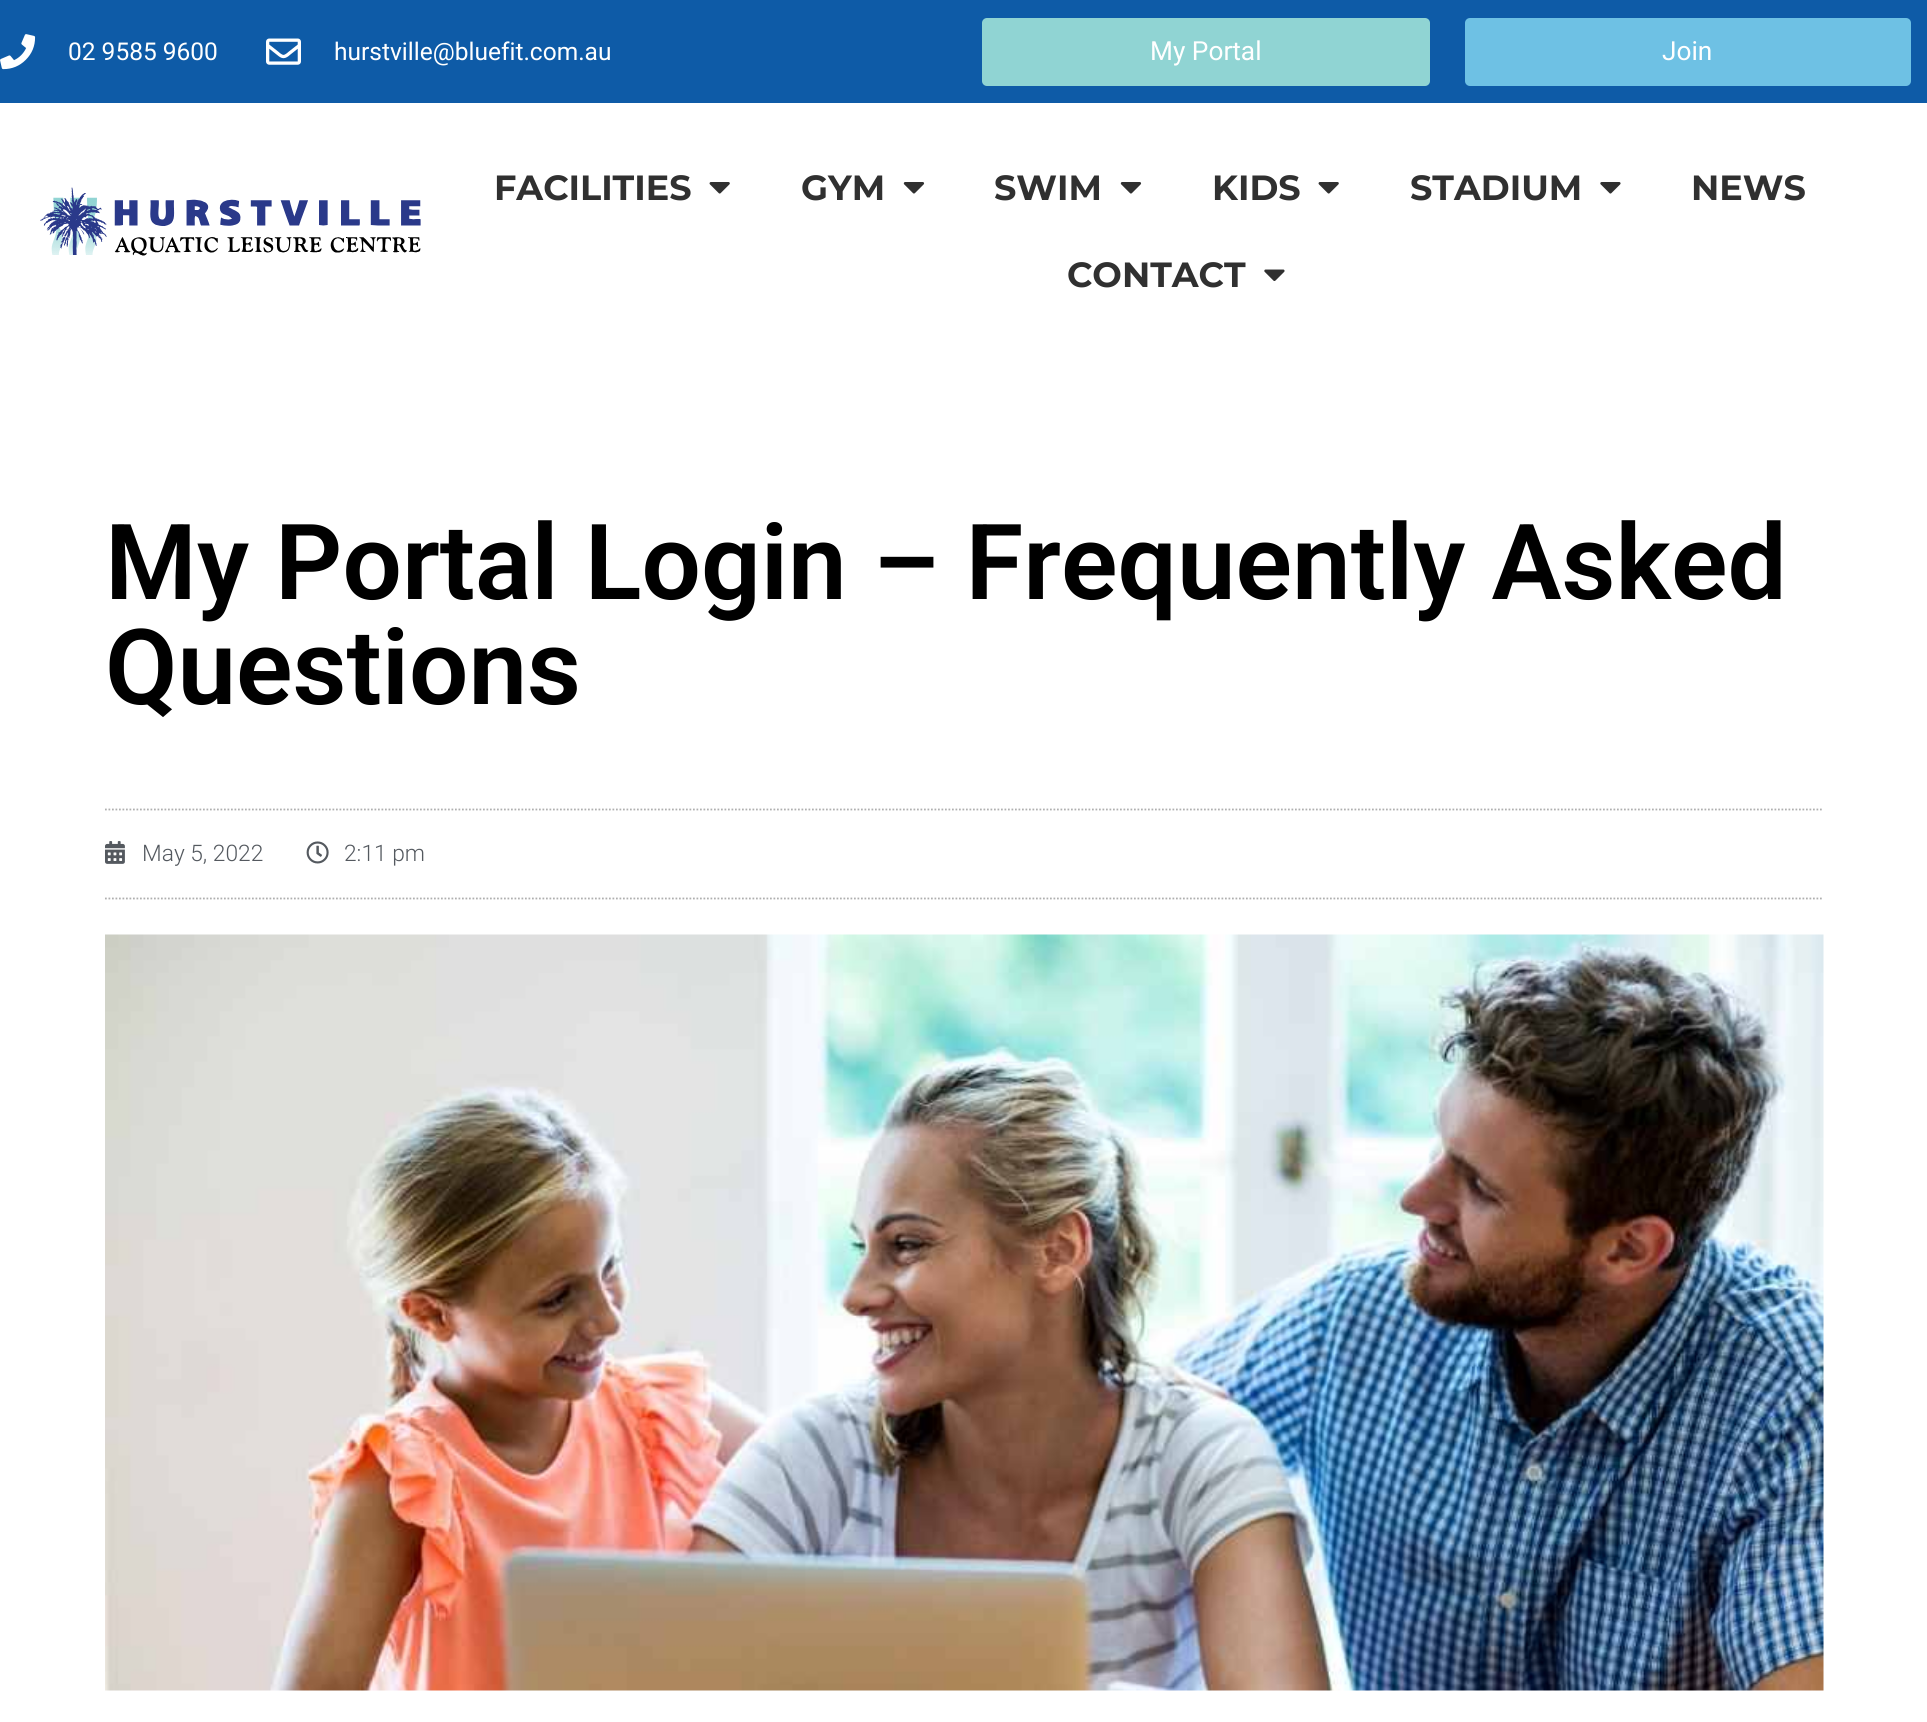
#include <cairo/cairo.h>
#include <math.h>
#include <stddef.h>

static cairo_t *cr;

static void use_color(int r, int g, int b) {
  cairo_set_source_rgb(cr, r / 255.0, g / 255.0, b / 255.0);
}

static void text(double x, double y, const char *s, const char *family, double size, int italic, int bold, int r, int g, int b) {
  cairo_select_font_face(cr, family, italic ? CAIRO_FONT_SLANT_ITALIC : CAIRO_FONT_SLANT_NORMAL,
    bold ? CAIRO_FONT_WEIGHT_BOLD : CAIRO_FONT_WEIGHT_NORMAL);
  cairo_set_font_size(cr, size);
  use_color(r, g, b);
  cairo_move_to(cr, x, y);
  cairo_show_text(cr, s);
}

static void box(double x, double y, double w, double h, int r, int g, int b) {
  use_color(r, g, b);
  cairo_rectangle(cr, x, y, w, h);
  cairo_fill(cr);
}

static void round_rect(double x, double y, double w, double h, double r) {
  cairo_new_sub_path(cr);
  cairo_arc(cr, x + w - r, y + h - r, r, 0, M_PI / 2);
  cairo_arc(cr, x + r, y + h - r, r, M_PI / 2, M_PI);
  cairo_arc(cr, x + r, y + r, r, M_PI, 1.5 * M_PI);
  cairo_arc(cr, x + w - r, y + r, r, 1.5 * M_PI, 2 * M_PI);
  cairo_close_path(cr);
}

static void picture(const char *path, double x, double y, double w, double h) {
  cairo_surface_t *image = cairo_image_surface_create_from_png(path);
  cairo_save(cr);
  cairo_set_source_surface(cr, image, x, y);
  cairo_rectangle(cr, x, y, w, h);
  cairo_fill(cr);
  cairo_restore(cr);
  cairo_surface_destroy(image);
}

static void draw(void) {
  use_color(255, 255, 255);
  cairo_paint(cr);
  box(0, 0, 1927, 103, 14, 91, 167);
  picture("img_01.png", 0, 34, 36, 36);
  picture("img_02.png", 266, 38, 35, 27);
  use_color(144, 212, 211);
  round_rect(982, 18, 448, 68, 5);
  cairo_fill(cr);
  use_color(110, 193, 228);
  round_rect(1465, 18, 446, 68, 5);
  cairo_fill(cr);
  picture("img_03.png", 40, 187, 381, 69);
  picture("img_04.png", 709, 182, 21, 12);
  picture("img_05.png", 903, 182, 22, 12);
  picture("img_05.png", 1120, 182, 22, 12);
  picture("img_04.png", 1318, 182, 21, 12);
  picture("img_06.png", 1600, 182, 21, 12);
  picture("img_07.png", 1264, 269, 21, 12);
  cairo_new_path(cr);
  cairo_move_to(cr, 105, 809.5);
  cairo_line_to(cr, 1823.5, 809.5);
  use_color(175, 175, 175);
  cairo_set_line_width(cr, 1.8);
  cairo_set_dash(cr, (double[]){1.75, 1.75}, 2, 0);
  cairo_stroke(cr);
  cairo_new_path(cr);
  cairo_move_to(cr, 105, 898.5);
  cairo_line_to(cr, 1823.5, 898.5);
  cairo_stroke(cr);
  picture("img_08.png", 105, 841, 20, 23);
  picture("img_09.png", 306, 841, 23, 23);
  picture("img_10.png", 105, 934, 1719, 757);
  text(68, 60, "02 9585 9600", "Roboto", 24.5, 0, 0, 255, 255, 255);
  text(334, 60, "hurstville@bluefit.com.au", "Roboto", 24.5, 0, 0, 255, 255, 255);
  text(1150, 60, "My Portal", "Roboto", 26.25, 0, 0, 255, 255, 255);
  text(1662, 60, "Join", "Roboto", 26.25, 0, 0, 255, 255, 255);
  text(494, 200, "FACILITIES", "Montserrat", 35, 0, 1, 48, 48, 48);
  text(801, 200, "GYM", "Montserrat", 35, 0, 1, 48, 48, 48);
  text(994, 200, "SWIM", "Montserrat", 35, 0, 1, 48, 48, 48);
  text(1212, 200, "KIDS", "Montserrat", 35, 0, 1, 48, 48, 48);
  text(1410, 200, "STADIUM", "Montserrat", 35, 0, 1, 48, 48, 48);
  text(1691, 200, "NEWS", "Montserrat", 35, 0, 1, 48, 48, 48);
  text(1067, 287, "CONTACT", "Montserrat", 35, 0, 1, 48, 48, 48);
  text(105, 599, "My Portal Login – Frequently Asked", "Roboto SemiBold", 105, 0, 0, 0, 0, 0);
  text(105, 704, "Questions", "Roboto SemiBold", 105, 0, 0, 0, 0, 0);
  text(142, 861, "May 5, 2022", "Roboto Light", 22.75, 0, 0, 84, 89, 95);
  text(344, 861, "2:11 pm", "Roboto Light", 22.75, 0, 0, 84, 89, 95);
}

int main(void) {
  cairo_surface_t *surface = cairo_image_surface_create(CAIRO_FORMAT_RGB24, 1927, 1722);
  cr = cairo_create(surface);
  cairo_font_options_t *options = cairo_font_options_create();
  cairo_font_options_set_hint_metrics(options, CAIRO_HINT_METRICS_OFF);
  cairo_font_options_set_hint_style(options, CAIRO_HINT_STYLE_NONE);
  cairo_set_font_options(cr, options);
  cairo_set_miter_limit(cr, 4);
  draw();
  cairo_surface_write_to_png(surface, "out.png");
  cairo_font_options_destroy(options);
  cairo_destroy(cr);
  cairo_surface_destroy(surface);
  return 0;
}
